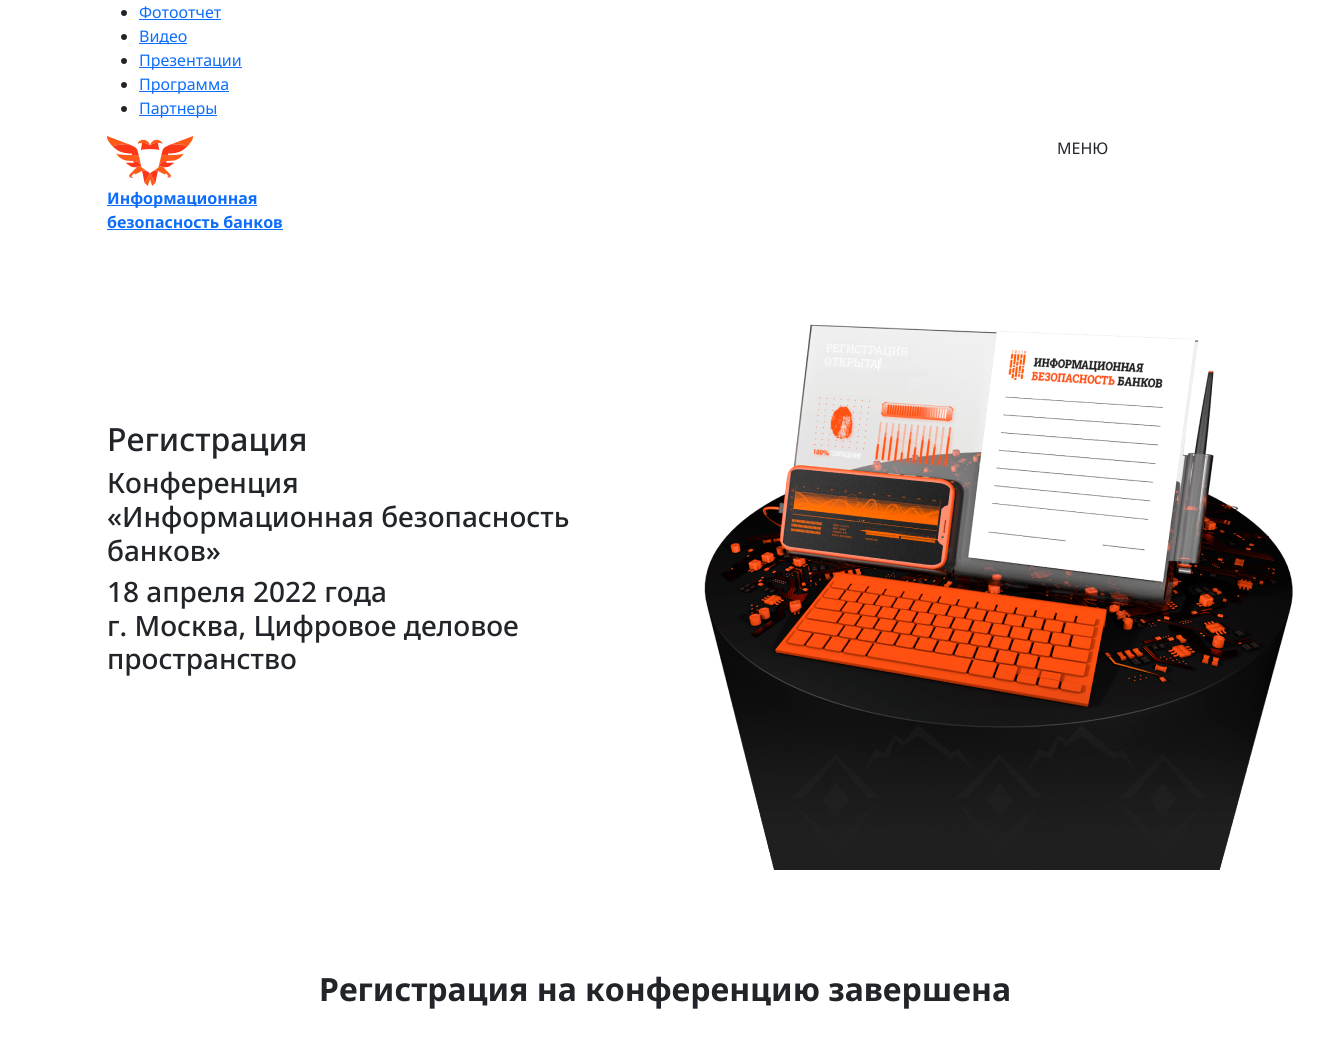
#include <cairo/cairo.h>
#include <math.h>
#include <stddef.h>

static cairo_t *cr;

static void use_color(int r, int g, int b) {
  cairo_set_source_rgb(cr, r / 255.0, g / 255.0, b / 255.0);
}

static void text(double x, double y, const char *s, const char *family, double size, int italic, int bold, int r, int g, int b) {
  cairo_select_font_face(cr, family, italic ? CAIRO_FONT_SLANT_ITALIC : CAIRO_FONT_SLANT_NORMAL,
    bold ? CAIRO_FONT_WEIGHT_BOLD : CAIRO_FONT_WEIGHT_NORMAL);
  cairo_set_font_size(cr, size);
  use_color(r, g, b);
  cairo_move_to(cr, x, y);
  cairo_show_text(cr, s);
}

static void box(double x, double y, double w, double h, int r, int g, int b) {
  use_color(r, g, b);
  cairo_rectangle(cr, x, y, w, h);
  cairo_fill(cr);
}

static void picture(const char *path, double x, double y, double w, double h) {
  cairo_surface_t *image = cairo_image_surface_create_from_png(path);
  cairo_save(cr);
  cairo_set_source_surface(cr, image, x, y);
  cairo_rectangle(cr, x, y, w, h);
  cairo_fill(cr);
  cairo_restore(cr);
  cairo_surface_destroy(image);
}

static void draw(void) {
  use_color(255, 255, 255);
  cairo_paint(cr);
  use_color(33, 37, 41);
  cairo_arc(cr, 124, 13, 3, 0, 2 * M_PI);
  cairo_fill(cr);
  box(139, 19, 82, 1, 13, 110, 253);
  use_color(33, 37, 41);
  cairo_arc(cr, 124, 37, 3, 0, 2 * M_PI);
  cairo_fill(cr);
  box(139, 43, 48, 1, 13, 110, 253);
  use_color(33, 37, 41);
  cairo_arc(cr, 124, 61, 3, 0, 2 * M_PI);
  cairo_fill(cr);
  box(139, 67, 103, 1, 13, 110, 253);
  use_color(33, 37, 41);
  cairo_arc(cr, 124, 85, 3, 0, 2 * M_PI);
  cairo_fill(cr);
  box(139, 91, 90, 1, 13, 110, 253);
  use_color(33, 37, 41);
  cairo_arc(cr, 124, 109, 3, 0, 2 * M_PI);
  cairo_fill(cr);
  box(139, 115, 78, 1, 13, 110, 253);
  picture("img_01.png", 107, 136, 86, 50);
  box(107, 205, 150, 1, 13, 110, 253);
  box(107, 229, 176, 1, 13, 110, 253);
  picture("img_02.png", 704, 324, 589, 546);
  text(139, 18, "Фотоотчет", "Noto Sans", 16, 0, 0, 13, 110, 253);
  text(139, 42, "Видео", "Noto Sans", 16, 0, 0, 13, 110, 253);
  text(139, 66, "Презентации", "Noto Sans", 16, 0, 0, 13, 110, 253);
  text(139, 90, "Программа", "Noto Sans", 16, 0, 0, 13, 110, 253);
  text(139, 114, "Партнеры", "Noto Sans", 16, 0, 0, 13, 110, 253);
  text(1057, 154, "МЕНЮ", "Noto Sans", 16, 0, 0, 33, 37, 41);
  text(107, 204, "Информационная", "Noto Sans", 16, 0, 1, 13, 110, 253);
  text(107, 228, "безопасность банков", "Noto Sans", 16, 0, 1, 13, 110, 253);
  text(107, 451, "Регистрация", "Noto Sans Medium", 32, 0, 0, 33, 37, 41);
  text(107, 493, "Конференция", "Noto Sans Medium", 28, 0, 0, 33, 37, 41);
  text(107, 527, "«Информационная безопасность", "Noto Sans Medium", 28, 0, 0, 33, 37, 41);
  text(107, 561, "банков»", "Noto Sans Medium", 28, 0, 0, 33, 37, 41);
  text(107, 602, "18 апреля 2022 года", "Noto Sans Medium", 28, 0, 0, 33, 37, 41);
  text(107, 636, "г. Москва, Цифровое деловое", "Noto Sans Medium", 28, 0, 0, 33, 37, 41);
  text(107, 669, "пространство", "Noto Sans Medium", 28, 0, 0, 33, 37, 41);
  text(319, 1001, "Регистрация на конференцию завершена", "Noto Sans", 32, 0, 1, 33, 37, 41);
}

int main(void) {
  cairo_surface_t *surface = cairo_image_surface_create(CAIRO_FORMAT_RGB24, 1330, 1040);
  cr = cairo_create(surface);
  cairo_font_options_t *options = cairo_font_options_create();
  cairo_font_options_set_hint_metrics(options, CAIRO_HINT_METRICS_OFF);
  cairo_font_options_set_hint_style(options, CAIRO_HINT_STYLE_NONE);
  cairo_set_font_options(cr, options);
  cairo_set_miter_limit(cr, 4);
  draw();
  cairo_surface_write_to_png(surface, "out.png");
  cairo_font_options_destroy(options);
  cairo_destroy(cr);
  cairo_surface_destroy(surface);
  return 0;
}
